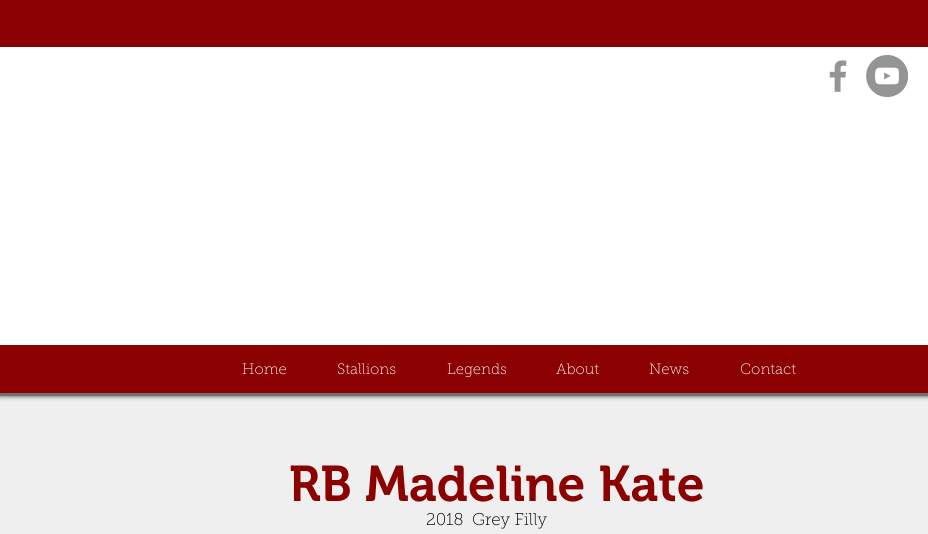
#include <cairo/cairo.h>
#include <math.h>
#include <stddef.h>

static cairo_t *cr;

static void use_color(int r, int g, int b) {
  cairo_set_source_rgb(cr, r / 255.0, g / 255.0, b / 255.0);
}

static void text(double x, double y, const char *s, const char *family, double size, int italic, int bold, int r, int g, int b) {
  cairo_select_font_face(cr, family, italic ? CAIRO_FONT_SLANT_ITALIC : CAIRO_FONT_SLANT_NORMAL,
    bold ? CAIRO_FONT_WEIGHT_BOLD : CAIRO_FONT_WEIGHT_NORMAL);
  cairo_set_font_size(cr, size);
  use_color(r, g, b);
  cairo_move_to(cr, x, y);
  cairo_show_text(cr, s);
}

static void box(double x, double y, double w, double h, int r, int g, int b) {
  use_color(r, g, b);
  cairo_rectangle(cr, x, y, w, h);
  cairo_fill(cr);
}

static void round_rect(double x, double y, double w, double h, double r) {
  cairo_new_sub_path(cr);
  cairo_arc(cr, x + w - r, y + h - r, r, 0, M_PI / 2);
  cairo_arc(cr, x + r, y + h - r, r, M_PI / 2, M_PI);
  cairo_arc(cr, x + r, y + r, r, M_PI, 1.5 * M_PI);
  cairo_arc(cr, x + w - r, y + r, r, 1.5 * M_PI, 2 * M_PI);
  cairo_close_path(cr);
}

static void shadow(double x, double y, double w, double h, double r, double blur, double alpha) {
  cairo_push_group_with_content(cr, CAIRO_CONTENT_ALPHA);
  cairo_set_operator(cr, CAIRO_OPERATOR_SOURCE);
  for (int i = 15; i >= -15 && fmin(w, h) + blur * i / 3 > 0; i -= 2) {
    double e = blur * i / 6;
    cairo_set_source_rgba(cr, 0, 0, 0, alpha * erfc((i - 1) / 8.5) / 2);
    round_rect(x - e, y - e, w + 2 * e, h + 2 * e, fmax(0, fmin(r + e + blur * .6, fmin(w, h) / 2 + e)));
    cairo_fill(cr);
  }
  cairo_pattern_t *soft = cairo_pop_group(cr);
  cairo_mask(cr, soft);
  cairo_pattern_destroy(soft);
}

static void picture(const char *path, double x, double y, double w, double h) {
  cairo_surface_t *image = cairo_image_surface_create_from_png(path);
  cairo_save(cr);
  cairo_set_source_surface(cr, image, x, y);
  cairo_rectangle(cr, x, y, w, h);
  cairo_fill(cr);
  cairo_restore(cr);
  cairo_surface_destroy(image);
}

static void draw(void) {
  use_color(239, 239, 239);
  cairo_paint(cr);
  use_color(0, 0, 0);
  shadow(0, 0, 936, 396, 0, 2.5, 0.7);
  box(0, 0, 928, 393, 139, 0, 0);
  box(0, 393, 928, 3, 113, 112, 112);
  box(0, 47, 928, 298, 255, 255, 255);
  picture("img_01.png", 829, 60, 18, 32);
  picture("img_02.png", 866, 55, 42, 42);
  text(242, 374, "Home", "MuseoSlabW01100 Thin", 15, 0, 0, 251, 243, 243);
  text(337, 374, "Stallions", "MuseoSlabW01100 Thin", 15, 0, 0, 251, 243, 243);
  text(447, 374, "Legends", "MuseoSlabW01100 Thin", 15, 0, 0, 251, 243, 243);
  text(556, 374, "About", "MuseoSlabW01100 Thin", 15, 0, 0, 251, 243, 243);
  text(649, 374, "News", "MuseoSlabW01100 Thin", 15, 0, 0, 251, 243, 243);
  text(740, 374, "Contact", "MuseoSlabW01100 Thin", 15, 0, 0, 251, 243, 243);
  text(289, 501, "RB Madeline Kate", "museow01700 SemiBold", 50, 0, 0, 139, 0, 0);
  text(426, 525, "2018  Grey Filly", "MuseoSlabW01100 Thin", 17, 0, 0, 0, 0, 0);
}

int main(void) {
  cairo_surface_t *surface = cairo_image_surface_create(CAIRO_FORMAT_RGB24, 928, 534);
  cr = cairo_create(surface);
  cairo_font_options_t *options = cairo_font_options_create();
  cairo_font_options_set_hint_metrics(options, CAIRO_HINT_METRICS_OFF);
  cairo_font_options_set_hint_style(options, CAIRO_HINT_STYLE_NONE);
  cairo_set_font_options(cr, options);
  cairo_set_miter_limit(cr, 4);
  draw();
  cairo_surface_write_to_png(surface, "out.png");
  cairo_font_options_destroy(options);
  cairo_destroy(cr);
  cairo_surface_destroy(surface);
  return 0;
}
